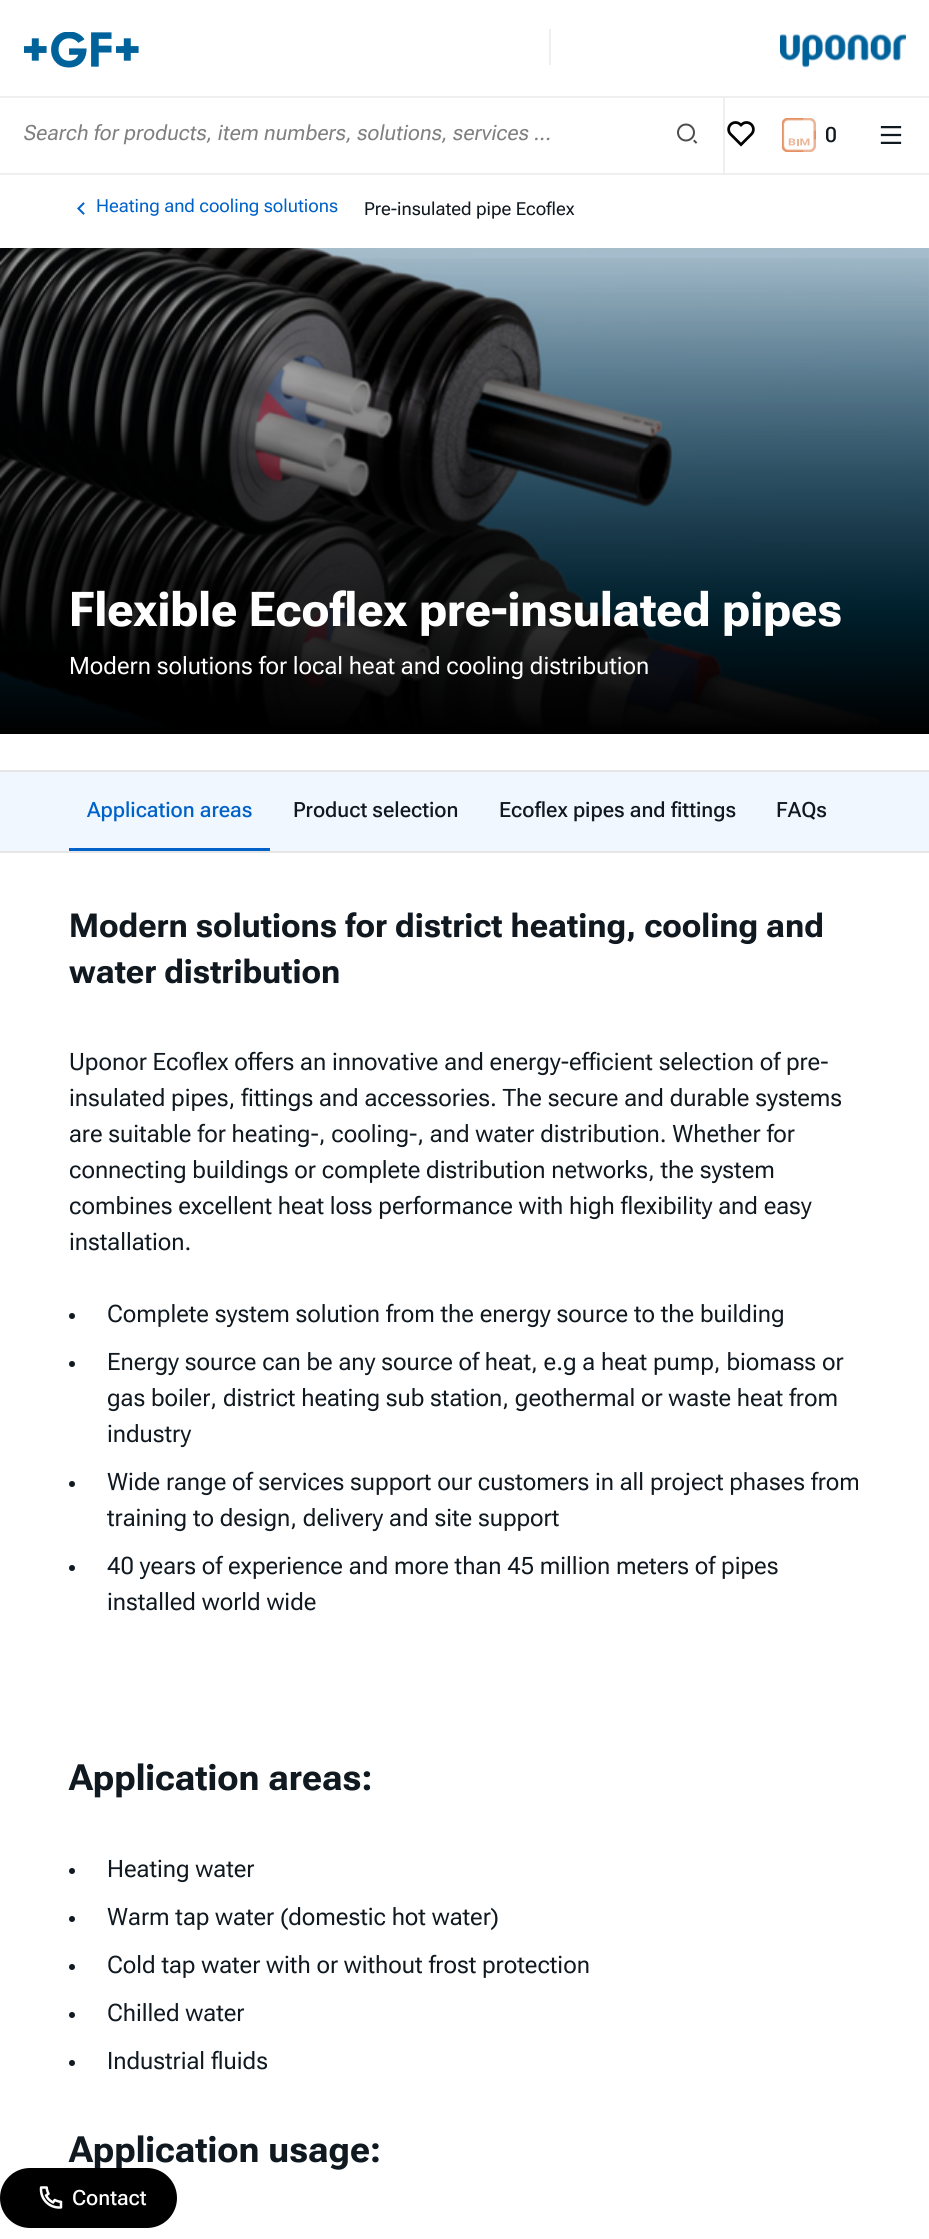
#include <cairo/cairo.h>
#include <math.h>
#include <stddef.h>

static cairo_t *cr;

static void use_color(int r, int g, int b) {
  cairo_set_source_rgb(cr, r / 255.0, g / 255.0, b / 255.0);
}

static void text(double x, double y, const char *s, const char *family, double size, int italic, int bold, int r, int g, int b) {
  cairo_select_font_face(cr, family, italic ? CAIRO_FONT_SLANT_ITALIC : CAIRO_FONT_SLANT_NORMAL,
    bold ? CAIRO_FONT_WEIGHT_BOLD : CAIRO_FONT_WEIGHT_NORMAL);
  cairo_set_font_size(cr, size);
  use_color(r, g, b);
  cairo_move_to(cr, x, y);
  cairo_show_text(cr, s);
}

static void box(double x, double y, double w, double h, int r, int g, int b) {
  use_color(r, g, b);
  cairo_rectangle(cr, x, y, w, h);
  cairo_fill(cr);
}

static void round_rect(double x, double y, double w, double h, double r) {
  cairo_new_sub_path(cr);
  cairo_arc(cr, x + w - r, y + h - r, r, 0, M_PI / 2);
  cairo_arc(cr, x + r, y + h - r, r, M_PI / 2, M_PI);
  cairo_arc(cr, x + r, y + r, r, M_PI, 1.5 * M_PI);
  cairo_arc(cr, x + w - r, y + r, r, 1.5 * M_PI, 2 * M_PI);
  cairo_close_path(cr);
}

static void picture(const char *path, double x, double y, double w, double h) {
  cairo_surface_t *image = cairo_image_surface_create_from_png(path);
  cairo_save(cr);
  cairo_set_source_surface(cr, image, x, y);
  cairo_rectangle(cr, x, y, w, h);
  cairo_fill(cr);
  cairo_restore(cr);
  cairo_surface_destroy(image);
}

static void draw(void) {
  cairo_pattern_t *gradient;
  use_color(255, 255, 255);
  cairo_paint(cr);
  box(0, 173, 929, 2, 239, 239, 239);
  picture("img_01.png", 24, 32, 115, 36);
  box(549, 29, 2, 36, 239, 239, 239);
  picture("img_02.png", 780, 34, 126, 34);
  box(723, 96, 2, 78, 239, 239, 239);
  box(0, 96, 929, 2, 239, 239, 239);
  picture("img_03.png", 677, 123, 21, 21);
  picture("img_04.png", 727, 121, 28, 26);
  picture("img_05.png", 782, 118, 34, 34);
  picture("img_06.png", 880, 126, 22, 18);
  picture("img_08.png", 77, 202, 8, 13);
  picture("img_09.png", 0, 248, 929, 483);
  gradient = cairo_pattern_create_linear(465, 247, 465, 734);
  cairo_pattern_add_color_stop_rgba(gradient, 0, 0, 0, 0, 0);
  cairo_pattern_add_color_stop_rgba(gradient, 1, 0, 0, 0, 1);
  cairo_set_source(cr, gradient);
  cairo_pattern_destroy(gradient);
  cairo_rectangle(cr, 0, 258, 929, 476);
  cairo_fill(cr);
  box(0, 772, 929, 79, 240, 247, 255);
  box(0, 770, 929, 2, 230, 230, 230);
  box(0, 851, 929, 2, 230, 230, 230);
  box(69, 848, 201, 3, 0, 98, 200);
  use_color(16, 24, 32);
  cairo_arc(cr, 72, 1316, 3, 0, 2 * M_PI);
  cairo_fill(cr);
  cairo_arc(cr, 72, 1364, 3, 0, 2 * M_PI);
  cairo_fill(cr);
  cairo_arc(cr, 72, 1484, 3, 0, 2 * M_PI);
  cairo_fill(cr);
  cairo_arc(cr, 72, 1568, 3, 0, 2 * M_PI);
  cairo_fill(cr);
  cairo_arc(cr, 72, 1871, 3, 0, 2 * M_PI);
  cairo_fill(cr);
  cairo_arc(cr, 72, 1919, 3, 0, 2 * M_PI);
  cairo_fill(cr);
  cairo_arc(cr, 72, 1967, 3, 0, 2 * M_PI);
  cairo_fill(cr);
  cairo_arc(cr, 72, 2015, 3, 0, 2 * M_PI);
  cairo_fill(cr);
  cairo_arc(cr, 72, 2063, 3, 0, 2 * M_PI);
  cairo_fill(cr);
  text(24, 140, "Search for products, item numbers, solutions, services ...", "Roboto Flex", 21, 1, 0, 128, 128, 128);
  text(825, 142, "0", "Roboto Flex Medium", 21, 0, 0, 16, 24, 32);
  text(96, 212, "Heating and cooling solutions", "Roboto Flex", 18, 0, 0, 0, 98, 200);
  text(364, 215, "Pre-insulated pipe Ecoflex", "Roboto Flex", 18, 0, 0, 16, 24, 32);
  text(69, 626, "Flexible Ecoflex pre-insulated pipes", "Roboto Flex", 48, 0, 1, 255, 255, 255);
  text(69, 674, "Modern solutions for local heat and cooling distribution", "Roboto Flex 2", 24, 0, 0, 255, 255, 255);
  text(87, 817, "Application areas", "Roboto Flex Medium", 21, 0, 0, 0, 98, 200);
  text(293, 817, "Product selection", "Roboto Flex Medium", 21, 0, 0, 16, 24, 32);
  text(499, 817, "Ecoflex pipes and fittings", "Roboto Flex Medium", 21, 0, 0, 16, 24, 32);
  text(776, 817, "FAQs", "Roboto Flex Medium", 21, 0, 0, 16, 24, 32);
  text(69, 937, "Modern solutions for district heating, cooling and", "Roboto Flex 2", 33, 0, 1, 16, 24, 32);
  text(69, 983, "water distribution", "Roboto Flex 2", 33, 0, 1, 16, 24, 32);
  text(69, 1070, "Uponor Ecoflex offers an innovative and energy-efficient selection of pre-", "Roboto Flex 2", 24, 0, 0, 16, 24, 32);
  text(69, 1106, "insulated pipes, fittings and accessories. The secure and durable systems", "Roboto Flex 2", 24, 0, 0, 16, 24, 32);
  text(69, 1142, "are suitable for heating-, cooling-, and water distribution. Whether for", "Roboto Flex 2", 24, 0, 0, 16, 24, 32);
  text(69, 1178, "connecting buildings or complete distribution networks, the system", "Roboto Flex 2", 24, 0, 0, 16, 24, 32);
  text(69, 1214, "combines excellent heat loss performance with high flexibility and easy", "Roboto Flex 2", 24, 0, 0, 16, 24, 32);
  text(69, 1250, "installation.", "Roboto Flex 2", 24, 0, 0, 16, 24, 32);
  text(107, 1322, "Complete system solution from the energy source to the building", "Roboto Flex 2", 24, 0, 0, 16, 24, 32);
  text(107, 1370, "Energy source can be any source of heat, e.g a heat pump, biomass or", "Roboto Flex 2", 24, 0, 0, 16, 24, 32);
  text(107, 1406, "gas boiler, district heating sub station, geothermal or waste heat from", "Roboto Flex 2", 24, 0, 0, 16, 24, 32);
  text(107, 1442, "industry", "Roboto Flex 2", 24, 0, 0, 16, 24, 32);
  text(107, 1490, "Wide range of services support our customers in all project phases from", "Roboto Flex 2", 24, 0, 0, 16, 24, 32);
  text(107, 1526, "training to design, delivery and site support", "Roboto Flex 2", 24, 0, 0, 16, 24, 32);
  text(107, 1574, "40 years of experience and more than 45 million meters of pipes", "Roboto Flex 2", 24, 0, 0, 16, 24, 32);
  text(107, 1610, "installed world wide", "Roboto Flex 2", 24, 0, 0, 16, 24, 32);
  text(69, 1790, "Application areas:", "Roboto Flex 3", 36, 0, 1, 16, 24, 32);
  text(107, 1877, "Heating water", "Roboto Flex 2", 24, 0, 0, 16, 24, 32);
  text(107, 1925, "Warm tap water (domestic hot water)", "Roboto Flex 2", 24, 0, 0, 16, 24, 32);
  text(107, 1973, "Cold tap water with or without frost protection", "Roboto Flex 2", 24, 0, 0, 16, 24, 32);
  text(107, 2021, "Chilled water", "Roboto Flex 2", 24, 0, 0, 16, 24, 32);
  text(107, 2069, "Industrial fluids", "Roboto Flex 2", 24, 0, 0, 16, 24, 32);
  text(69, 2162, "Application usage:", "Roboto Flex 3", 36, 0, 1, 16, 24, 32);
  use_color(0, 0, 0);
  round_rect(0, 2168, 177, 60, 30);
  cairo_fill(cr);
  picture("img_07.png", 39, 2186, 24, 23);
  text(72, 2205, "Contact", "Roboto Flex Medium", 21, 0, 0, 255, 255, 255);
}

int main(void) {
  cairo_surface_t *surface = cairo_image_surface_create(CAIRO_FORMAT_RGB24, 929, 2239);
  cr = cairo_create(surface);
  cairo_font_options_t *options = cairo_font_options_create();
  cairo_font_options_set_hint_metrics(options, CAIRO_HINT_METRICS_OFF);
  cairo_font_options_set_hint_style(options, CAIRO_HINT_STYLE_NONE);
  cairo_set_font_options(cr, options);
  cairo_set_miter_limit(cr, 4);
  draw();
  cairo_surface_write_to_png(surface, "out.png");
  cairo_font_options_destroy(options);
  cairo_destroy(cr);
  cairo_surface_destroy(surface);
  return 0;
}
